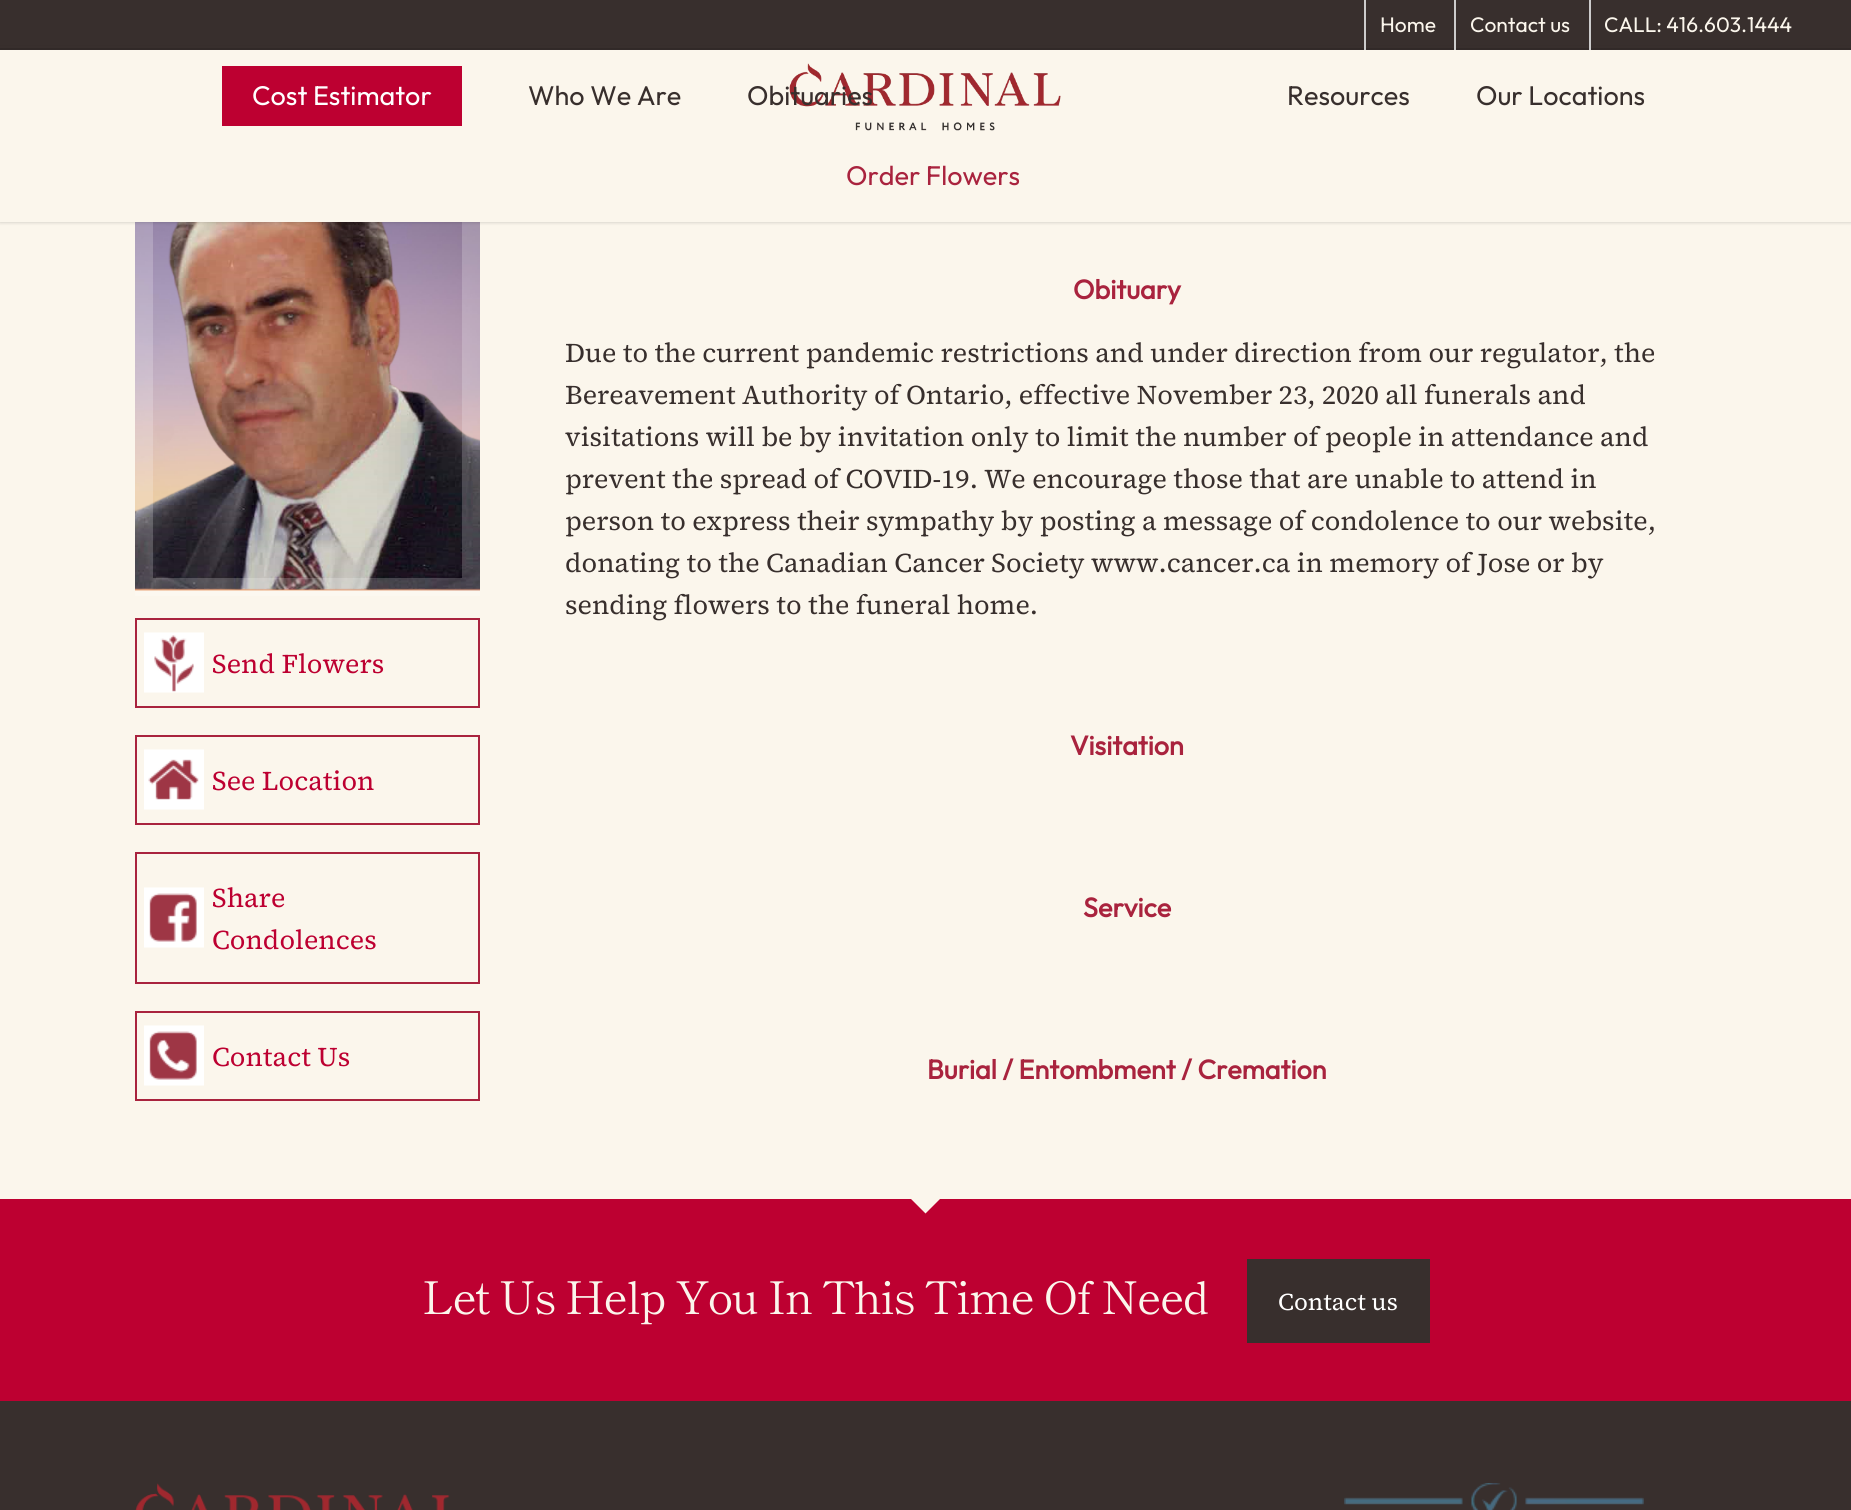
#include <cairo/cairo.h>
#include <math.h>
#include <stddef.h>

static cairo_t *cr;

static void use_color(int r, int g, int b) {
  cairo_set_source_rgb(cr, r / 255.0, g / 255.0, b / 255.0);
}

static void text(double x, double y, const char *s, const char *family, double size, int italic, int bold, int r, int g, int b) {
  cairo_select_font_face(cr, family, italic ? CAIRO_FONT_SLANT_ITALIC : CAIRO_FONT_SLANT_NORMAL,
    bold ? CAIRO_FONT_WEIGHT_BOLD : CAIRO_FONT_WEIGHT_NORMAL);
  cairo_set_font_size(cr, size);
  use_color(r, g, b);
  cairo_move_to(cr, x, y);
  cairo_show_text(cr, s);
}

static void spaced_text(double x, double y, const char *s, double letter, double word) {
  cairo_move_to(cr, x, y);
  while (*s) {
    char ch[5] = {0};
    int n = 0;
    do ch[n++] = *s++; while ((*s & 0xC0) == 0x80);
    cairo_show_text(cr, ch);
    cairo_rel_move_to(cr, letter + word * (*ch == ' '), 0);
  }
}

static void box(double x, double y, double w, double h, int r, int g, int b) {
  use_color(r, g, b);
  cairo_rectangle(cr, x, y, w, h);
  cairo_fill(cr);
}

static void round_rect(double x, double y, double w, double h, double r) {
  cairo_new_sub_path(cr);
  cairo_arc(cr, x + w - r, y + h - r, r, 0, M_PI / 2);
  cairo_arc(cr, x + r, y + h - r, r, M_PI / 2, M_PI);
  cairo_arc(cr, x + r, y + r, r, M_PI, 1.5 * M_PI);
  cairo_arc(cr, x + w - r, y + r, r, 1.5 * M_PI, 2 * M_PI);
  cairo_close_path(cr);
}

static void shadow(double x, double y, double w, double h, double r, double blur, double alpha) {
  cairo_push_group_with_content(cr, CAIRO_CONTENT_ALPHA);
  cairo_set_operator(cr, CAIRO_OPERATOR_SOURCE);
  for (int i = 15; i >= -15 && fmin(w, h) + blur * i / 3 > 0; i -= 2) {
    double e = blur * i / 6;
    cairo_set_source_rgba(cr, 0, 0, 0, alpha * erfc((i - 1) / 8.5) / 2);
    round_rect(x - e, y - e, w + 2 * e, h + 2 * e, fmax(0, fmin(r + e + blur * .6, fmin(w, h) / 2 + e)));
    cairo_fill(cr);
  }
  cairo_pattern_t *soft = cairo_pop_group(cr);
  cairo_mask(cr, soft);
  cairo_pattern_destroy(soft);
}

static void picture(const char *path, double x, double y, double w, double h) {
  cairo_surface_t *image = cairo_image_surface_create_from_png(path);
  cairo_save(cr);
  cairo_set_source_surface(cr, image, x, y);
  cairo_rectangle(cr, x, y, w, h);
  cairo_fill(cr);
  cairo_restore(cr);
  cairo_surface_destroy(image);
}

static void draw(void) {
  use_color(56, 47, 45);
  cairo_paint(cr);
  box(0, 222, 1851, 977, 251, 246, 236);
  picture("img_02.png", 135, 222, 345, 369);
  cairo_rectangle(cr, 144, 128, 327, 459);
  cairo_set_source_rgba(cr, 1, 1, 1, 0.2);
  cairo_set_line_width(cr, 18);
  cairo_stroke(cr);
  use_color(0, 0, 0);
  shadow(0, 48, 1851, 174, 0, 2, 0.22);
  box(0, 46, 1851, 2, 56, 47, 45);
  box(0, 49, 1851, 1, 50, 42, 41);
  box(1364, 0, 2, 50, 204, 204, 204);
  box(1454, 0, 2, 50, 204, 204, 204);
  box(1589, 0, 2, 50, 204, 204, 204);
  box(0, 50, 1851, 172, 251, 246, 236);
  picture("img_01.png", 789, 63, 272, 68);
  box(222, 66, 240, 60, 189, 0, 49);
  picture("img_03.png", 144, 632, 60, 61);
  cairo_rectangle(cr, 136, 619, 343, 88);
  use_color(169, 35, 62);
  cairo_set_line_width(cr, 2);
  cairo_stroke(cr);
  picture("img_04.png", 144, 749, 60, 61);
  cairo_rectangle(cr, 136, 736, 343, 88);
  cairo_stroke(cr);
  picture("img_05.png", 144, 887, 60, 61);
  cairo_rectangle(cr, 136, 853, 343, 130);
  cairo_stroke(cr);
  picture("img_06.png", 144, 1025, 60, 61);
  cairo_rectangle(cr, 136, 1012, 343, 88);
  cairo_stroke(cr);
  box(0, 1199, 1851, 202, 189, 0, 49);
  use_color(251, 246, 236);
  cairo_new_path(cr);
  cairo_move_to(cr, 910.5, 1198.5);
  cairo_line_to(cr, 940.5, 1198.5);
  cairo_line_to(cr, 925.5, 1213.5);
  cairo_close_path(cr);
  cairo_fill(cr);
  box(1247, 1259, 183, 84, 56, 47, 45);
  picture("img_07.png", 135, 1483, 315, 27);
  picture("img_08.png", 1344, 1483, 300, 27);
  text(1380, 32, "Home", "Outfit", 21, 0, 0, 251, 246, 236);
  text(1470, 32, "Contact us", "Outfit", 21, 0, 0, 251, 246, 236);
  text(1604, 32, "CALL: 416.603.1444", "Outfit", 21, 0, 0, 251, 246, 236);
  text(252, 105, "Cost Estimator", "Outfit", 27, 0, 0, 255, 255, 255);
  text(528, 105, "Who We Are", "Outfit", 27, 0, 0, 56, 47, 45);
  text(747, 105, "Obituaries", "Outfit", 27, 0, 0, 56, 47, 45);
  text(1287, 105, "Resources", "Outfit", 27, 0, 0, 56, 47, 45);
  text(1476, 105, "Our Locations", "Outfit", 27, 0, 0, 56, 47, 45);
  text(846, 185, "Order Flowers", "Outfit", 27, 0, 0, 169, 35, 62);
  text(212, 673, "Send Flowers", "Source Serif 4", 27, 0, 0, 189, 0, 49);
  text(212, 790, "See Location", "Source Serif 4", 27, 0, 0, 189, 0, 49);
  text(212, 907, "Share", "Source Serif 4", 27, 0, 0, 189, 0, 49);
  text(212, 949, "Condolences", "Source Serif 4", 27, 0, 0, 189, 0, 49);
  text(212, 1066, "Contact Us", "Source Serif 4", 27, 0, 0, 189, 0, 49);
  text(1073, 299, "Obituary", "Outfit", 27, 0, 1, 169, 35, 62);
  text(565, 362, "Due to the current pandemic restrictions and under direction from our regulator, the", "Source Serif 4", 27, 0, 0, 56, 47, 45);
  text(565, 404, "Bereavement Authority of Ontario, effective November 23, 2020 all funerals and", "Source Serif 4", 27, 0, 0, 56, 47, 45);
  text(565, 446, "visitations will be by invitation only to limit the number of people in attendance and", "Source Serif 4", 27, 0, 0, 56, 47, 45);
  text(565, 488, "prevent the spread of COVID-19. We encourage those that are unable to attend in", "Source Serif 4", 27, 0, 0, 56, 47, 45);
  text(565, 530, "person to express their sympathy by posting a message of condolence to our website,", "Source Serif 4", 27, 0, 0, 56, 47, 45);
  text(565, 572, "donating to the Canadian Cancer Society www.cancer.ca in memory of Jose or by", "Source Serif 4", 27, 0, 0, 56, 47, 45);
  text(565, 614, "sending flowers to the funeral home.", "Source Serif 4", 27, 0, 0, 56, 47, 45);
  text(1070, 755, "Visitation", "Outfit", 27, 0, 1, 169, 35, 62);
  text(1083, 917, "Service", "Outfit", 27, 0, 1, 169, 35, 62);
  text(927, 1079, "Burial / Entombment / Cremation", "Outfit", 27, 0, 1, 169, 35, 62);
  cairo_select_font_face(cr, "Shippori Mincho", CAIRO_FONT_SLANT_NORMAL, CAIRO_FONT_WEIGHT_NORMAL);
  cairo_set_font_size(cr, 45);
  use_color(251, 246, 236);
  spaced_text(422, 1314, "Let Us Help You In This Time Of Need", -1.5, 0);
  text(1278, 1310, "Contact us", "Source Serif 4", 24, 0, 0, 255, 255, 255);
}

int main(void) {
  cairo_surface_t *surface = cairo_image_surface_create(CAIRO_FORMAT_RGB24, 1851, 1510);
  cr = cairo_create(surface);
  cairo_font_options_t *options = cairo_font_options_create();
  cairo_font_options_set_hint_metrics(options, CAIRO_HINT_METRICS_OFF);
  cairo_font_options_set_hint_style(options, CAIRO_HINT_STYLE_NONE);
  cairo_set_font_options(cr, options);
  cairo_set_miter_limit(cr, 4);
  draw();
  cairo_surface_write_to_png(surface, "out.png");
  cairo_font_options_destroy(options);
  cairo_destroy(cr);
  cairo_surface_destroy(surface);
  return 0;
}
